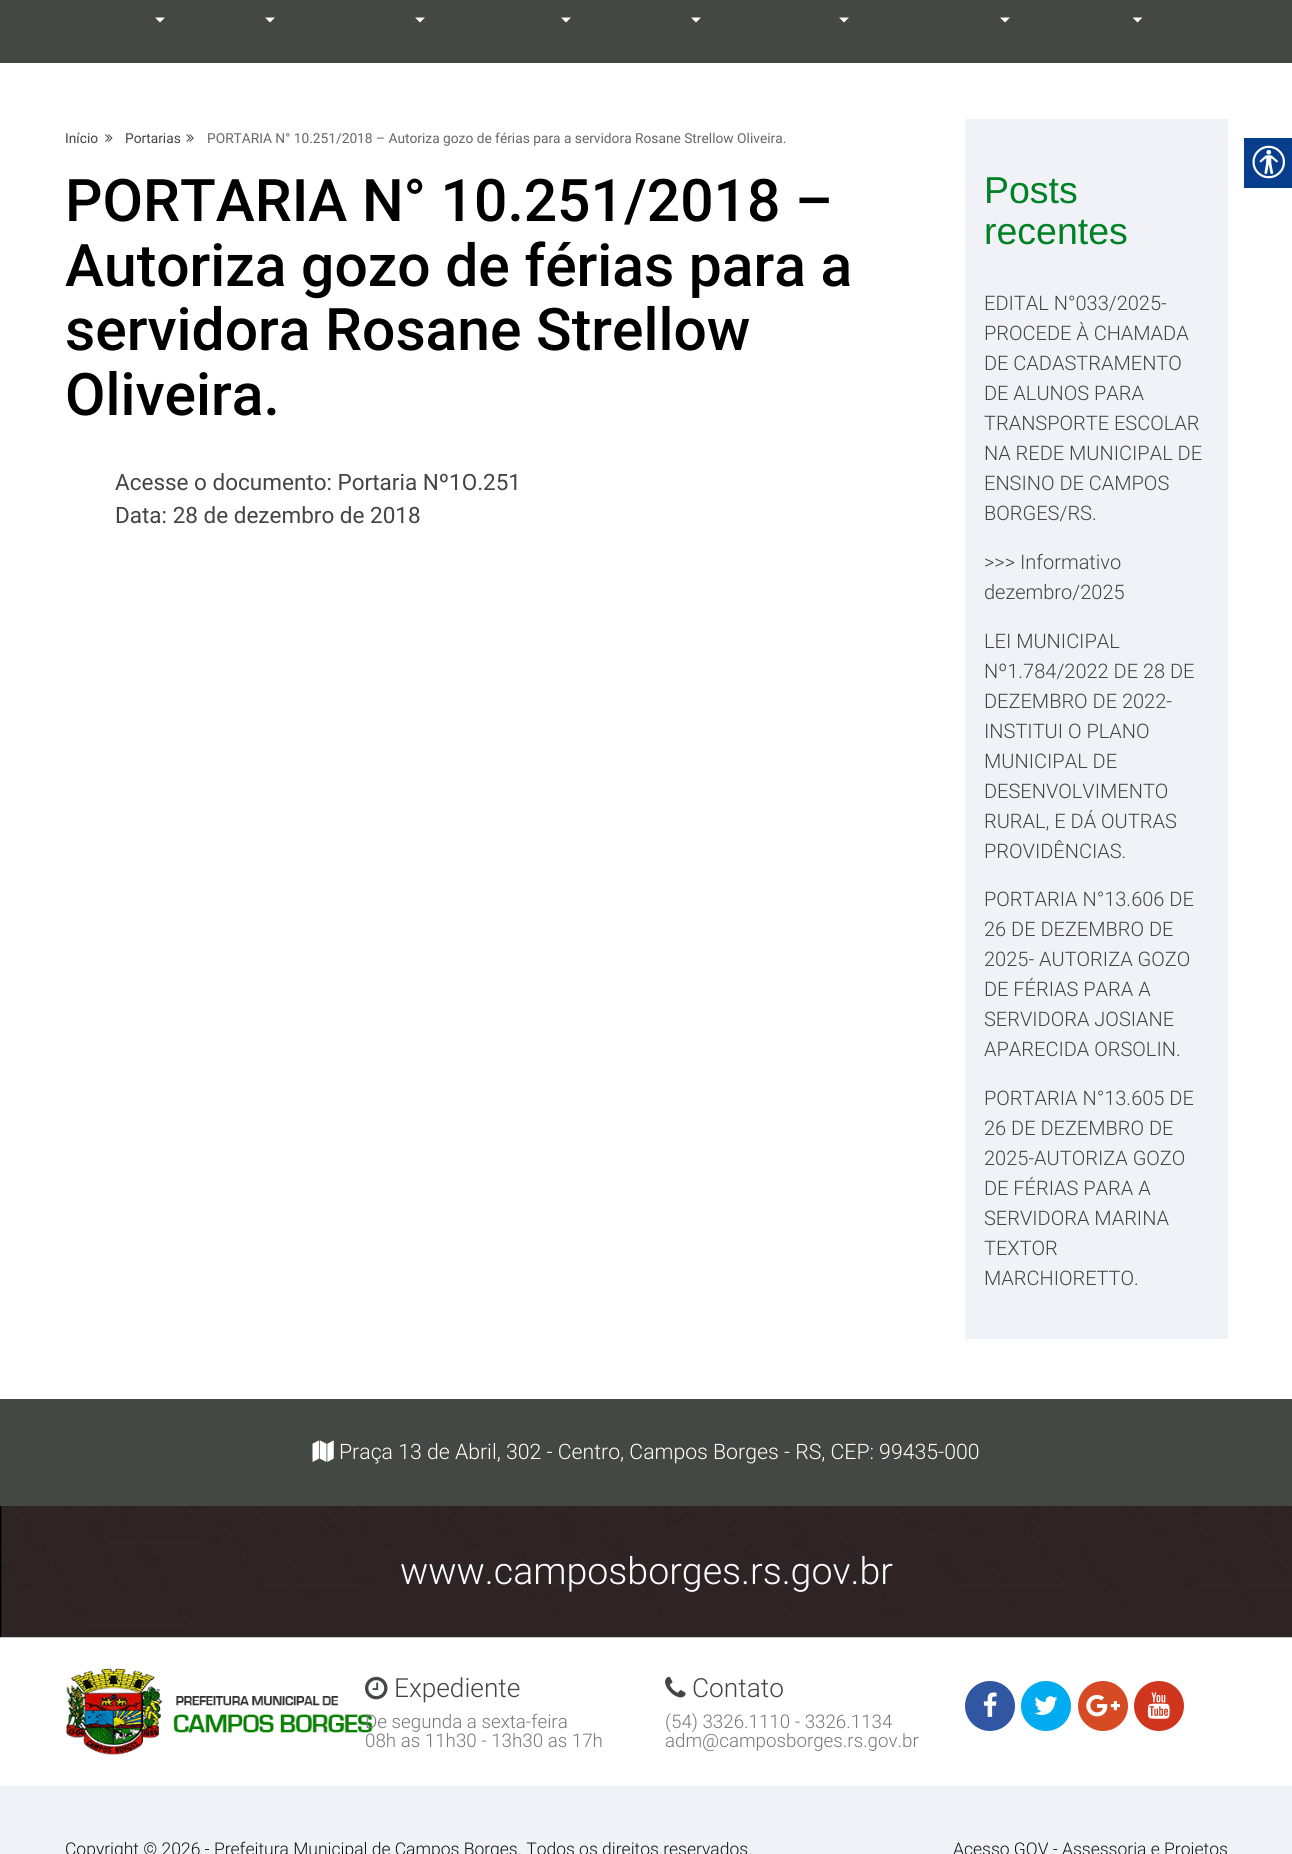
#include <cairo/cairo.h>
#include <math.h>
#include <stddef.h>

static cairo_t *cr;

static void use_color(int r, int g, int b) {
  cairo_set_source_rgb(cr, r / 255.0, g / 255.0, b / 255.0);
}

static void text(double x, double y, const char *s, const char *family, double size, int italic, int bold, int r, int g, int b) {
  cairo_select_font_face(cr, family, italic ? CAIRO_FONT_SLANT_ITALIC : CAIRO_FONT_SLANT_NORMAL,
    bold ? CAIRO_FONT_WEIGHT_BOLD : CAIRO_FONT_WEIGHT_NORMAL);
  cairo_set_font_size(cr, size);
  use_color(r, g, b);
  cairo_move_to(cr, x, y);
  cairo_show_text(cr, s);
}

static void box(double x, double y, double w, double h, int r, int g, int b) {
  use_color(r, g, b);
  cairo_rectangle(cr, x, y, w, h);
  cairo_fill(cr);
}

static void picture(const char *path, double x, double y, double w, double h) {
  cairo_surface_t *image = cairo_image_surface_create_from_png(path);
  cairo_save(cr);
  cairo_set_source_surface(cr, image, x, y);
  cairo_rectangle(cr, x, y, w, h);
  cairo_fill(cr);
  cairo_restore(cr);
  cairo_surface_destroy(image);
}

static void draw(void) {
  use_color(255, 255, 255);
  cairo_paint(cr);
  box(0, 0, 1292, 63, 67, 72, 68);
  use_color(255, 255, 255);
  cairo_new_path(cr);
  cairo_move_to(cr, 155, 17.5);
  cairo_line_to(cr, 165, 17.5);
  cairo_line_to(cr, 160, 22.5);
  cairo_close_path(cr);
  cairo_fill(cr);
  cairo_new_path(cr);
  cairo_move_to(cr, 265, 17.5);
  cairo_line_to(cr, 275, 17.5);
  cairo_line_to(cr, 270, 22.5);
  cairo_close_path(cr);
  cairo_fill(cr);
  cairo_new_path(cr);
  cairo_move_to(cr, 415, 17.5);
  cairo_line_to(cr, 425, 17.5);
  cairo_line_to(cr, 420, 22.5);
  cairo_close_path(cr);
  cairo_fill(cr);
  cairo_new_path(cr);
  cairo_move_to(cr, 561, 17.5);
  cairo_line_to(cr, 571, 17.5);
  cairo_line_to(cr, 566, 22.5);
  cairo_close_path(cr);
  cairo_fill(cr);
  cairo_new_path(cr);
  cairo_move_to(cr, 691, 17.5);
  cairo_line_to(cr, 701, 17.5);
  cairo_line_to(cr, 696, 22.5);
  cairo_close_path(cr);
  cairo_fill(cr);
  cairo_new_path(cr);
  cairo_move_to(cr, 839, 17.5);
  cairo_line_to(cr, 849, 17.5);
  cairo_line_to(cr, 844, 22.5);
  cairo_close_path(cr);
  cairo_fill(cr);
  cairo_new_path(cr);
  cairo_move_to(cr, 1000, 17.5);
  cairo_line_to(cr, 1010, 17.5);
  cairo_line_to(cr, 1005, 22.5);
  cairo_close_path(cr);
  cairo_fill(cr);
  cairo_new_path(cr);
  cairo_move_to(cr, 1132.5, 17.5);
  cairo_line_to(cr, 1142.5, 17.5);
  cairo_line_to(cr, 1137.5, 22.5);
  cairo_close_path(cr);
  cairo_fill(cr);
  picture("img_01.png", 105, 134, 8, 8);
  picture("img_02.png", 186, 134, 8, 8);
  box(965, 119, 263, 1220, 241, 242, 247);
  box(1244, 138, 48, 50, 6, 61, 141);
  picture("img_03.png", 1252, 145, 33, 34);
  box(0, 1399, 1292, 107, 67, 72, 68);
  picture("img_04.png", 312, 1440, 22, 22);
  picture("img_05.png", 0, 1506, 1292, 132);
  picture("img_06.png", 65, 1667, 308, 88);
  picture("img_07.png", 365, 1676, 23, 24);
  picture("img_08.png", 665, 1676, 21, 22);
  use_color(49, 87, 163);
  cairo_arc(cr, 990, 1706, 25, 0, 2 * M_PI);
  cairo_fill(cr);
  picture("img_09.png", 983, 1692, 14, 25);
  use_color(0, 171, 240);
  cairo_arc(cr, 1046, 1706, 25, 0, 2 * M_PI);
  cairo_fill(cr);
  picture("img_10.png", 1034, 1696, 24, 19);
  use_color(214, 75, 36);
  cairo_arc(cr, 1103, 1706, 25, 0, 2 * M_PI);
  cairo_fill(cr);
  picture("img_11.png", 1086, 1694, 34, 23);
  use_color(207, 54, 29);
  cairo_arc(cr, 1159, 1706, 25, 0, 2 * M_PI);
  cairo_fill(cr);
  picture("img_12.png", 1147, 1692, 23, 27);
  box(0, 1786, 1292, 68, 241, 242, 247);
  text(65, 143, "Início", "Roboto", 13.75, 0, 0, 68, 68, 68);
  text(125, 143, "Portarias", "Roboto", 13.75, 0, 0, 68, 68, 68);
  text(207, 143, "PORTARIA N° 10.251/2018 – Autoriza gozo de férias para a servidora Rosane Strellow Oliveira.", "Roboto", 13.75, 0, 0, 102, 102, 102);
  text(65, 221, "PORTARIA N° 10.251/2018 –", "Roboto Medium", 58.75, 0, 0, 0, 0, 0);
  text(65, 286, "Autoriza gozo de férias para a", "Roboto Medium", 58.75, 0, 0, 0, 0, 0);
  text(65, 350, "servidora Rosane Strellow", "Roboto Medium", 58.75, 0, 0, 0, 0, 0);
  text(65, 415, "Oliveira.", "Roboto Medium", 58.75, 0, 0, 0, 0, 0);
  text(115, 490, "Acesse o documento: Portaria Nº1O.251", "Roboto", 22.5, 0, 0, 68, 68, 68);
  text(115, 523, "Data: 28 de dezembro de 2018", "Roboto", 22.5, 0, 0, 68, 68, 68);
  text(984, 203, "Posts", "Liberation Sans", 37.5, 0, 0, 0, 129, 37);
  text(984, 244, "recentes", "Liberation Sans", 37.5, 0, 0, 0, 129, 37);
  text(984, 310, "EDITAL N°033/2025-", "Roboto Light", 20, 0, 0, 68, 68, 68);
  text(984, 340, "PROCEDE À CHAMADA", "Roboto Light", 20, 0, 0, 68, 68, 68);
  text(984, 370, "DE CADASTRAMENTO", "Roboto Light", 20, 0, 0, 68, 68, 68);
  text(984, 400, "DE ALUNOS PARA", "Roboto Light", 20, 0, 0, 68, 68, 68);
  text(984, 430, "TRANSPORTE ESCOLAR", "Roboto Light", 20, 0, 0, 68, 68, 68);
  text(984, 460, "NA REDE MUNICIPAL DE", "Roboto Light", 20, 0, 0, 68, 68, 68);
  text(984, 490, "ENSINO DE CAMPOS", "Roboto Light", 20, 0, 0, 68, 68, 68);
  text(984, 520, "BORGES/RS.", "Roboto Light", 20, 0, 0, 68, 68, 68);
  text(984, 569, ">>> Informativo", "Roboto Light", 20, 0, 0, 68, 68, 68);
  text(984, 599, "dezembro/2025", "Roboto Light", 20, 0, 0, 68, 68, 68);
  text(984, 648, "LEI MUNICIPAL", "Roboto Light", 20, 0, 0, 68, 68, 68);
  text(984, 678, "Nº1.784/2022 DE 28 DE", "Roboto Light", 20, 0, 0, 68, 68, 68);
  text(984, 708, "DEZEMBRO DE 2022-", "Roboto Light", 20, 0, 0, 68, 68, 68);
  text(984, 738, "INSTITUI O PLANO", "Roboto Light", 20, 0, 0, 68, 68, 68);
  text(984, 768, "MUNICIPAL DE", "Roboto Light", 20, 0, 0, 68, 68, 68);
  text(984, 798, "DESENVOLVIMENTO", "Roboto Light", 20, 0, 0, 68, 68, 68);
  text(984, 828, "RURAL, E DÁ OUTRAS", "Roboto Light", 20, 0, 0, 68, 68, 68);
  text(984, 858, "PROVIDÊNCIAS.", "Roboto Light", 20, 0, 0, 68, 68, 68);
  text(984, 906, "PORTARIA N°13.606 DE", "Roboto Light", 20, 0, 0, 68, 68, 68);
  text(984, 936, "26 DE DEZEMBRO DE", "Roboto Light", 20, 0, 0, 68, 68, 68);
  text(984, 966, "2025- AUTORIZA GOZO", "Roboto Light", 20, 0, 0, 68, 68, 68);
  text(984, 996, "DE FÉRIAS PARA A", "Roboto Light", 20, 0, 0, 68, 68, 68);
  text(984, 1026, "SERVIDORA JOSIANE", "Roboto Light", 20, 0, 0, 68, 68, 68);
  text(984, 1056, "APARECIDA ORSOLIN.", "Roboto Light", 20, 0, 0, 68, 68, 68);
  text(984, 1105, "PORTARIA N°13.605 DE", "Roboto Light", 20, 0, 0, 68, 68, 68);
  text(984, 1135, "26 DE DEZEMBRO DE", "Roboto Light", 20, 0, 0, 68, 68, 68);
  text(984, 1165, "2025-AUTORIZA GOZO", "Roboto Light", 20, 0, 0, 68, 68, 68);
  text(984, 1195, "DE FÉRIAS PARA A", "Roboto Light", 20, 0, 0, 68, 68, 68);
  text(984, 1225, "SERVIDORA MARINA", "Roboto Light", 20, 0, 0, 68, 68, 68);
  text(984, 1255, "TEXTOR", "Roboto Light", 20, 0, 0, 68, 68, 68);
  text(984, 1285, "MARCHIORETTO.", "Roboto Light", 20, 0, 0, 68, 68, 68);
  text(339, 1459, "Praça 13 de Abril, 302 - Centro, Campos Borges - RS, CEP: 99435-000", "Roboto Light", 21.25, 0, 0, 255, 255, 255);
  text(400, 1584, "www.camposborges.rs.gov.br", "Roboto Light", 37.5, 0, 0, 255, 255, 255);
  text(394, 1697, "Expediente", "Roboto Light", 26.25, 0, 0, 68, 68, 68);
  text(365, 1728, "De segunda a sexta-feira", "Roboto Light", 18.75, 0, 0, 119, 119, 119);
  text(365, 1747, "08h as 11h30 - 13h30 as 17h", "Roboto Light", 18.75, 0, 0, 119, 119, 119);
  text(692, 1697, "Contato", "Roboto Light", 26.25, 0, 0, 68, 68, 68);
  text(665, 1728, "(54) 3326.1110 - 3326.1134", "Roboto Light", 18.75, 0, 0, 119, 119, 119);
  text(665, 1747, "adm@camposborges.rs.gov.br", "Roboto Light", 18.75, 0, 0, 119, 119, 119);
  text(65, 1855, "Copyright © 2026 - Prefeitura Municipal de Campos Borges. Todos os direitos reservados.", "Roboto Light", 17.5, 0, 0, 18, 18, 18);
  text(953, 1855, "Acesso GOV - Assessoria e Projetos", "Roboto Light", 17.5, 0, 0, 18, 18, 18);
}

int main(void) {
  cairo_surface_t *surface = cairo_image_surface_create(CAIRO_FORMAT_RGB24, 1292, 1854);
  cr = cairo_create(surface);
  cairo_font_options_t *options = cairo_font_options_create();
  cairo_font_options_set_hint_metrics(options, CAIRO_HINT_METRICS_OFF);
  cairo_font_options_set_hint_style(options, CAIRO_HINT_STYLE_NONE);
  cairo_set_font_options(cr, options);
  cairo_set_miter_limit(cr, 4);
  draw();
  cairo_surface_write_to_png(surface, "out.png");
  cairo_font_options_destroy(options);
  cairo_destroy(cr);
  cairo_surface_destroy(surface);
  return 0;
}
